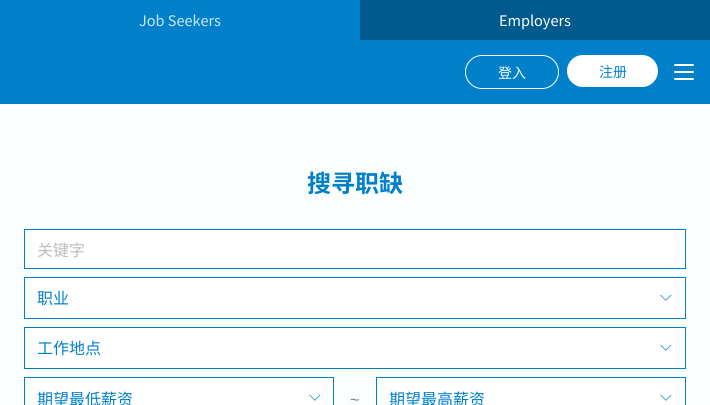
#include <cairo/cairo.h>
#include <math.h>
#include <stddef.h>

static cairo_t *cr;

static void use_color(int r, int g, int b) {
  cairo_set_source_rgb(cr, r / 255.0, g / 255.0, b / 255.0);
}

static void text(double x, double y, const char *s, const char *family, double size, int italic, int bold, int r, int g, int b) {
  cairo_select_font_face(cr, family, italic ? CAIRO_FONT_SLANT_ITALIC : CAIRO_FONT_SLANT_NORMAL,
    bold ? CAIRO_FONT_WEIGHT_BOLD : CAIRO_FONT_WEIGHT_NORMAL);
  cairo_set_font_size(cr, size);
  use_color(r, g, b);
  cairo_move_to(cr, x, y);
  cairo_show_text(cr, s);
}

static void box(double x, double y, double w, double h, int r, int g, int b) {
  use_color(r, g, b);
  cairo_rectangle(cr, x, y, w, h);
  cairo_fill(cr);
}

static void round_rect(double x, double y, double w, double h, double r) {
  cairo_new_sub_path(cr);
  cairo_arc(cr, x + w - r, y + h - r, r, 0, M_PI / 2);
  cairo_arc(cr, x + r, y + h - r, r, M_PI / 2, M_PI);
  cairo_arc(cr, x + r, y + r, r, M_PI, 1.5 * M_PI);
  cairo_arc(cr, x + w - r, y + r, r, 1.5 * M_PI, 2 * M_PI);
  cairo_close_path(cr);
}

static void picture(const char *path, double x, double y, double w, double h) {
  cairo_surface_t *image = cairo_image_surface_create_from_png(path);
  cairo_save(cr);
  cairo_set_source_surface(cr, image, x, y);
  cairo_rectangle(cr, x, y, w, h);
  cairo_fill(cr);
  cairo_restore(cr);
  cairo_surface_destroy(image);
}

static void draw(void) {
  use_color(250, 254, 254);
  cairo_paint(cr);
  box(0, 0, 710, 104, 0, 128, 203);
  box(360, 0, 350, 40, 0, 90, 142);
  round_rect(465.5, 55.5, 93, 33, 16.5);
  use_color(255, 255, 255);
  cairo_set_line_width(cr, 1);
  cairo_stroke(cr);
  round_rect(567, 55, 91, 32, 16);
  cairo_fill(cr);
  round_rect(674, 64, 20, 2, 1);
  cairo_fill(cr);
  round_rect(674, 71, 20, 2, 1);
  cairo_fill(cr);
  round_rect(674, 78, 20, 2, 1);
  cairo_fill(cr);
  cairo_rectangle(cr, 24.5, 229.5, 661, 39);
  cairo_fill_preserve(cr);
  use_color(0, 128, 203);
  cairo_stroke(cr);
  use_color(255, 255, 255);
  cairo_rectangle(cr, 24.5, 277.5, 661, 41);
  cairo_fill_preserve(cr);
  use_color(0, 128, 203);
  cairo_stroke(cr);
  picture("img_01.png", 660, 294, 12, 7);
  use_color(255, 255, 255);
  cairo_rectangle(cr, 24.5, 327.5, 661, 41);
  cairo_fill_preserve(cr);
  use_color(0, 128, 203);
  cairo_stroke(cr);
  picture("img_01.png", 660, 344, 12, 7);
  use_color(255, 255, 255);
  cairo_rectangle(cr, 24.5, 377.5, 309, 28);
  cairo_fill_preserve(cr);
  use_color(0, 128, 203);
  cairo_stroke(cr);
  picture("img_01.png", 309, 394, 12, 7);
  use_color(255, 255, 255);
  cairo_rectangle(cr, 376.5, 377.5, 309, 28);
  cairo_fill_preserve(cr);
  use_color(0, 128, 203);
  cairo_stroke(cr);
  picture("img_01.png", 660, 394, 12, 7);
  text(139, 26, "Job Seekers", "Noto Sans SC", 14.5, 0, 0, 204, 230, 245);
  text(499, 26, "Employers", "Noto Sans SC", 14.5, 0, 0, 255, 255, 255);
  text(498, 78, "登入", "Noto Sans CJK SC", 14, 0, 0, 255, 255, 255);
  text(599, 77, "注册", "Noto Sans CJK SC", 14, 0, 0, 0, 128, 203);
  text(307, 192, "搜寻职缺", "Noto Sans SC", 24, 0, 1, 0, 128, 203);
  text(37, 256, "关键字", "Noto Sans CJK SC", 16, 0, 0, 188, 189, 189);
  text(37, 304, "职业", "Noto Sans CJK SC", 16, 0, 0, 0, 128, 203);
  text(37, 354, "工作地", "Noto Sans CJK SC", 16, 0, 0, 0, 128, 203);
  text(85, 354, "点", "Noto Sans SC", 16, 0, 0, 0, 128, 203);
  text(37, 405, "期望最低薪资", "Noto Sans CJK SC", 16, 0, 0, 0, 128, 203);
  text(350, 405, "~", "Liberation Sans", 16, 0, 0, 120, 122, 122);
  text(389, 405, "期望最高薪资", "Noto Sans CJK SC", 16, 0, 0, 0, 128, 203);
}

int main(void) {
  cairo_surface_t *surface = cairo_image_surface_create(CAIRO_FORMAT_RGB24, 710, 405);
  cr = cairo_create(surface);
  cairo_font_options_t *options = cairo_font_options_create();
  cairo_font_options_set_hint_metrics(options, CAIRO_HINT_METRICS_OFF);
  cairo_font_options_set_hint_style(options, CAIRO_HINT_STYLE_NONE);
  cairo_set_font_options(cr, options);
  cairo_set_miter_limit(cr, 4);
  draw();
  cairo_surface_write_to_png(surface, "out.png");
  cairo_font_options_destroy(options);
  cairo_destroy(cr);
  cairo_surface_destroy(surface);
  return 0;
}
